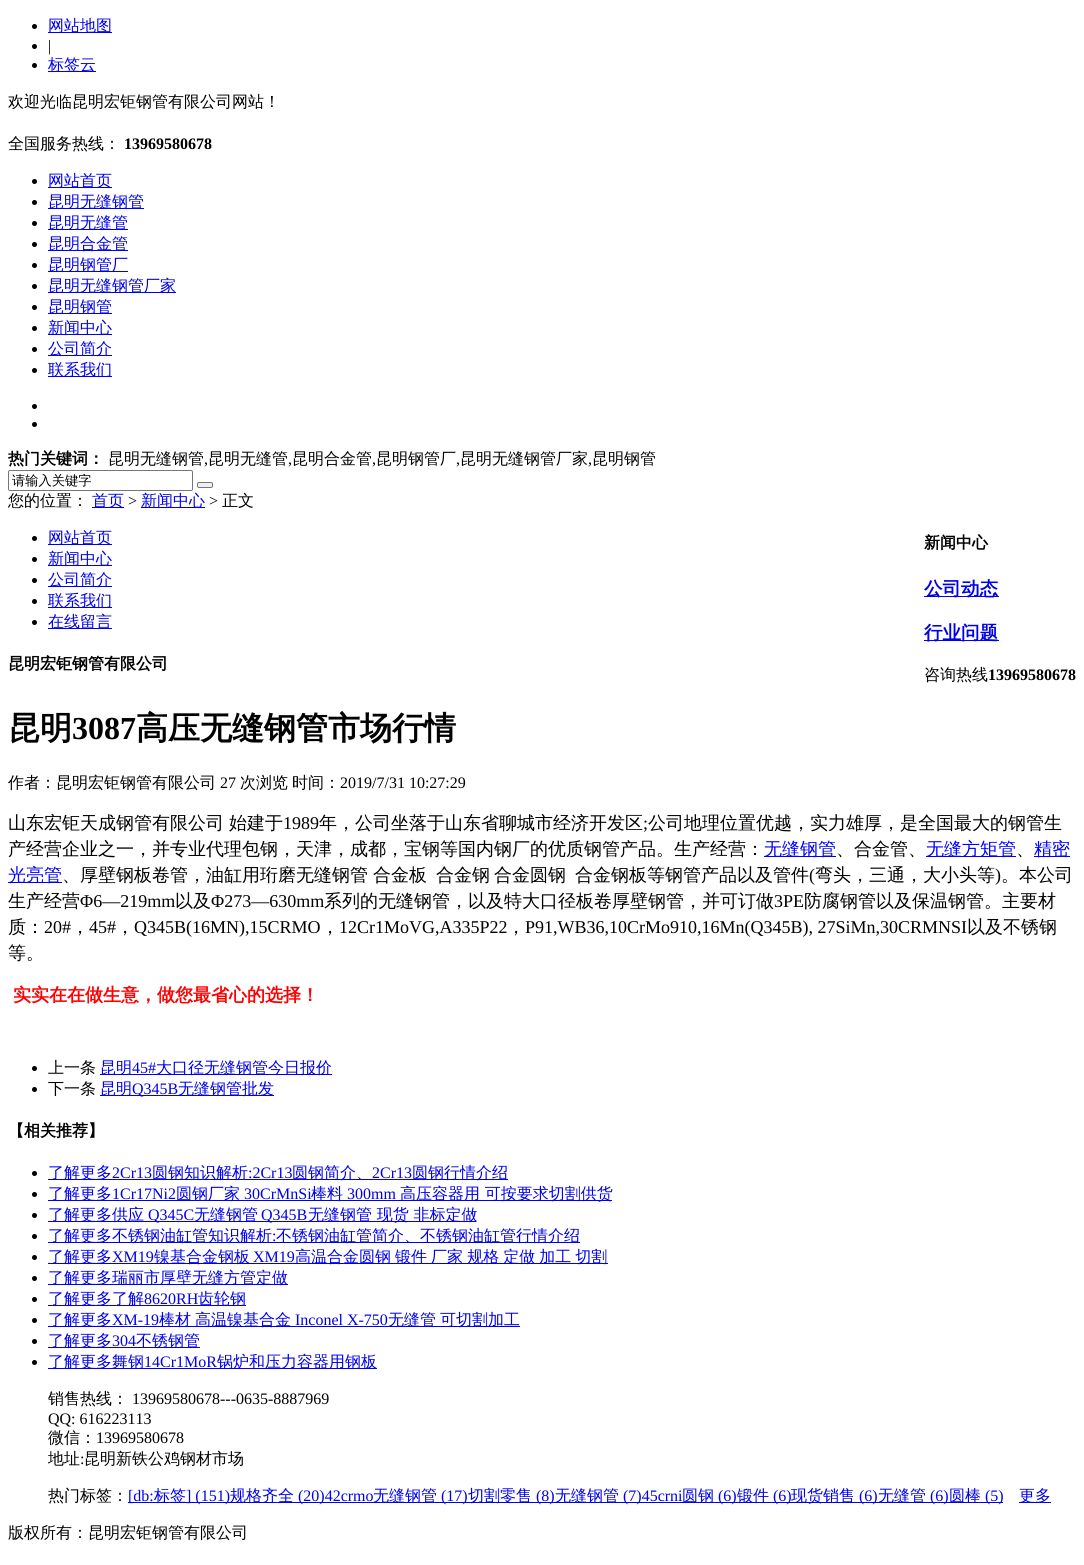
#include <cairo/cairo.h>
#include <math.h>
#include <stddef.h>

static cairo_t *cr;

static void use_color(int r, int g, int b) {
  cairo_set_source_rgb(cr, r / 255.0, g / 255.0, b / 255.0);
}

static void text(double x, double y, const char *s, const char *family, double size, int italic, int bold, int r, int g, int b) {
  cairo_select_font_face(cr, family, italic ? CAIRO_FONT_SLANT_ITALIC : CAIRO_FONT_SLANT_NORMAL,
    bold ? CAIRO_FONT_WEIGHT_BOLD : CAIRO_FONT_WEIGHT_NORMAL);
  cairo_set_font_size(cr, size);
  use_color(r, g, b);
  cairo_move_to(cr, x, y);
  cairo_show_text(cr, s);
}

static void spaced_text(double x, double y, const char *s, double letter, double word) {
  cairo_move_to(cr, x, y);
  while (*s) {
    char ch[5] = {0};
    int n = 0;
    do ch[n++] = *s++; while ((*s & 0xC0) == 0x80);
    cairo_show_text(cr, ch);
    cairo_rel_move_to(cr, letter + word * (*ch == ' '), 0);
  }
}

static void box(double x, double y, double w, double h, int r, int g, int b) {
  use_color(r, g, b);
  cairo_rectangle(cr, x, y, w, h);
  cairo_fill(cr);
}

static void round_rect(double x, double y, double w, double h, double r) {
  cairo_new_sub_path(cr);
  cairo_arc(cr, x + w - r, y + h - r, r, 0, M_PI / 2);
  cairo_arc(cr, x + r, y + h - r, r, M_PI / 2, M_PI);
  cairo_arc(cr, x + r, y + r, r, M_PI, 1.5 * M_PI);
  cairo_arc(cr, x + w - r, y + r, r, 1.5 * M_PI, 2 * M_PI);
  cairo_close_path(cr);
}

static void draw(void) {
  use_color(255, 255, 255);
  cairo_paint(cr);
  use_color(0, 0, 0);
  cairo_arc(cr, 34.5, 26.5, 2.5, 0, 2 * M_PI);
  cairo_fill(cr);
  box(48, 32, 64, 1, 0, 0, 238);
  use_color(0, 0, 0);
  cairo_arc(cr, 34.5, 46.5, 2.5, 0, 2 * M_PI);
  cairo_fill(cr);
  cairo_arc(cr, 34.5, 65.5, 2.5, 0, 2 * M_PI);
  cairo_fill(cr);
  box(48, 71, 48, 1, 0, 0, 238);
  use_color(0, 0, 0);
  cairo_arc(cr, 34.5, 181.5, 2.5, 0, 2 * M_PI);
  cairo_fill(cr);
  box(48, 187, 64, 1, 0, 0, 238);
  use_color(0, 0, 0);
  cairo_arc(cr, 34.5, 202.5, 2.5, 0, 2 * M_PI);
  cairo_fill(cr);
  box(48, 208, 96, 1, 0, 0, 238);
  use_color(0, 0, 0);
  cairo_arc(cr, 34.5, 223.5, 2.5, 0, 2 * M_PI);
  cairo_fill(cr);
  box(48, 229, 80, 1, 0, 0, 238);
  use_color(0, 0, 0);
  cairo_arc(cr, 34.5, 244.5, 2.5, 0, 2 * M_PI);
  cairo_fill(cr);
  box(48, 250, 80, 1, 0, 0, 238);
  use_color(0, 0, 0);
  cairo_arc(cr, 34.5, 265.5, 2.5, 0, 2 * M_PI);
  cairo_fill(cr);
  box(48, 271, 80, 1, 0, 0, 238);
  use_color(0, 0, 0);
  cairo_arc(cr, 34.5, 286.5, 2.5, 0, 2 * M_PI);
  cairo_fill(cr);
  box(48, 292, 128, 1, 0, 0, 238);
  use_color(0, 0, 0);
  cairo_arc(cr, 34.5, 307.5, 2.5, 0, 2 * M_PI);
  cairo_fill(cr);
  box(48, 313, 64, 1, 0, 0, 238);
  use_color(0, 0, 0);
  cairo_arc(cr, 34.5, 328.5, 2.5, 0, 2 * M_PI);
  cairo_fill(cr);
  box(48, 334, 64, 1, 0, 0, 238);
  use_color(0, 0, 0);
  cairo_arc(cr, 34.5, 349.5, 2.5, 0, 2 * M_PI);
  cairo_fill(cr);
  box(48, 355, 64, 1, 0, 0, 238);
  use_color(0, 0, 0);
  cairo_arc(cr, 34.5, 370.5, 2.5, 0, 2 * M_PI);
  cairo_fill(cr);
  box(48, 376, 64, 1, 0, 0, 238);
  use_color(0, 0, 0);
  cairo_arc(cr, 34.5, 406.5, 2.5, 0, 2 * M_PI);
  cairo_fill(cr);
  cairo_arc(cr, 34.5, 424.5, 2.5, 0, 2 * M_PI);
  cairo_fill(cr);
  round_rect(8.5, 470.5, 184, 20, 1.5);
  use_color(118, 118, 118);
  cairo_set_line_width(cr, 1);
  cairo_stroke(cr);
  use_color(239, 239, 239);
  round_rect(197.5, 482.5, 15, 5, 1.5);
  cairo_fill_preserve(cr);
  use_color(118, 118, 118);
  cairo_stroke(cr);
  box(92, 507, 32, 1, 0, 0, 238);
  box(141, 507, 64, 1, 0, 0, 238);
  box(924, 596, 75, 1, 0, 0, 238);
  box(924, 640, 75, 1, 0, 0, 238);
  box(764, 856, 72, 1, 0, 0, 238);
  box(926, 856, 90, 1, 0, 0, 238);
  box(1034, 856, 36, 1, 0, 0, 238);
  box(8, 882, 54, 1, 0, 0, 238);
  use_color(0, 0, 0);
  cairo_arc(cr, 34.5, 1068.5, 2.5, 0, 2 * M_PI);
  cairo_fill(cr);
  box(100, 1074, 232, 1, 0, 0, 238);
  use_color(0, 0, 0);
  cairo_arc(cr, 34.5, 1089.5, 2.5, 0, 2 * M_PI);
  cairo_fill(cr);
  box(100, 1095, 174, 1, 0, 0, 238);
  use_color(0, 0, 0);
  cairo_arc(cr, 34.5, 1173.5, 2.5, 0, 2 * M_PI);
  cairo_fill(cr);
  box(48, 1179, 460, 1, 0, 0, 238);
  use_color(0, 0, 0);
  cairo_arc(cr, 34.5, 1194.5, 2.5, 0, 2 * M_PI);
  cairo_fill(cr);
  box(48, 1200, 564, 1, 0, 0, 238);
  use_color(0, 0, 0);
  cairo_arc(cr, 34.5, 1215.5, 2.5, 0, 2 * M_PI);
  cairo_fill(cr);
  box(48, 1221, 428, 1, 0, 0, 238);
  use_color(0, 0, 0);
  cairo_arc(cr, 34.5, 1236.5, 2.5, 0, 2 * M_PI);
  cairo_fill(cr);
  box(48, 1242, 532, 1, 0, 0, 238);
  use_color(0, 0, 0);
  cairo_arc(cr, 34.5, 1257.5, 2.5, 0, 2 * M_PI);
  cairo_fill(cr);
  box(48, 1263, 560, 1, 0, 0, 238);
  use_color(0, 0, 0);
  cairo_arc(cr, 34.5, 1278.5, 2.5, 0, 2 * M_PI);
  cairo_fill(cr);
  box(48, 1284, 240, 1, 0, 0, 238);
  use_color(0, 0, 0);
  cairo_arc(cr, 34.5, 1299.5, 2.5, 0, 2 * M_PI);
  cairo_fill(cr);
  box(48, 1305, 198, 1, 0, 0, 238);
  use_color(0, 0, 0);
  cairo_arc(cr, 34.5, 1320.5, 2.5, 0, 2 * M_PI);
  cairo_fill(cr);
  box(48, 1326, 472, 1, 0, 0, 238);
  use_color(0, 0, 0);
  cairo_arc(cr, 34.5, 1341.5, 2.5, 0, 2 * M_PI);
  cairo_fill(cr);
  box(48, 1347, 152, 1, 0, 0, 238);
  use_color(0, 0, 0);
  cairo_arc(cr, 34.5, 1362.5, 2.5, 0, 2 * M_PI);
  cairo_fill(cr);
  box(48, 1368, 329, 1, 0, 0, 238);
  use_color(0, 0, 0);
  cairo_arc(cr, 34.5, 538.5, 2.5, 0, 2 * M_PI);
  cairo_fill(cr);
  box(48, 544, 64, 1, 0, 0, 238);
  use_color(0, 0, 0);
  cairo_arc(cr, 34.5, 559.5, 2.5, 0, 2 * M_PI);
  cairo_fill(cr);
  box(48, 565, 64, 1, 0, 0, 238);
  use_color(0, 0, 0);
  cairo_arc(cr, 34.5, 580.5, 2.5, 0, 2 * M_PI);
  cairo_fill(cr);
  box(48, 586, 64, 1, 0, 0, 238);
  use_color(0, 0, 0);
  cairo_arc(cr, 34.5, 601.5, 2.5, 0, 2 * M_PI);
  cairo_fill(cr);
  box(48, 607, 64, 1, 0, 0, 238);
  use_color(0, 0, 0);
  cairo_arc(cr, 34.5, 622.5, 2.5, 0, 2 * M_PI);
  cairo_fill(cr);
  box(48, 628, 64, 1, 0, 0, 238);
  box(128, 1502, 875, 1, 0, 0, 238);
  box(1019, 1502, 32, 1, 0, 0, 238);
  text(48, 31, "网站地图", "WenQuanYi Zen Hei Medium", 16, 0, 0, 0, 0, 238);
  text(48, 51, "|", "Liberation Serif", 16, 0, 0, 0, 0, 0);
  text(48, 70, "标签云", "WenQuanYi Zen Hei Medium", 16, 0, 0, 0, 0, 238);
  text(8, 107, "欢迎光临昆明宏钜钢管有限公司网站！", "WenQuanYi Zen Hei Medium", 16, 0, 0, 0, 0, 0);
  text(8, 149, "全国服务热线：", "WenQuanYi Zen Hei Medium", 16, 0, 0, 0, 0, 0);
  text(124, 149, "13969580678", "Liberation Serif", 16, 0, 1, 0, 0, 0);
  text(48, 186, "网站首页", "WenQuanYi Zen Hei Medium", 16, 0, 0, 0, 0, 238);
  text(48, 207, "昆明无缝钢管", "WenQuanYi Zen Hei Medium", 16, 0, 0, 0, 0, 238);
  text(48, 228, "昆明无缝管", "WenQuanYi Zen Hei Medium", 16, 0, 0, 0, 0, 238);
  text(48, 249, "昆明合金管", "WenQuanYi Zen Hei Medium", 16, 0, 0, 0, 0, 238);
  text(48, 270, "昆明钢管厂", "WenQuanYi Zen Hei Medium", 16, 0, 0, 0, 0, 238);
  text(48, 291, "昆明无缝钢管厂家", "WenQuanYi Zen Hei Medium", 16, 0, 0, 0, 0, 238);
  text(48, 312, "昆明钢管", "WenQuanYi Zen Hei Medium", 16, 0, 0, 0, 0, 238);
  text(48, 333, "新闻中心", "WenQuanYi Zen Hei Medium", 16, 0, 0, 0, 0, 238);
  text(48, 354, "公司简介", "WenQuanYi Zen Hei Medium", 16, 0, 0, 0, 0, 238);
  text(48, 375, "联系我们", "WenQuanYi Zen Hei Medium", 16, 0, 0, 0, 0, 238);
  text(8, 464, "热门关键词：", "WenQuanYi Zen Hei", 16, 0, 1, 0, 0, 0);
  text(108, 464, "昆明无缝钢管", "WenQuanYi Zen Hei Medium", 16, 0, 0, 0, 0, 0);
  text(204, 464, ",", "Liberation Serif", 16, 0, 0, 0, 0, 0);
  text(208, 464, "昆明无缝管", "WenQuanYi Zen Hei Medium", 16, 0, 0, 0, 0, 0);
  text(288, 464, ",", "Liberation Serif", 16, 0, 0, 0, 0, 0);
  text(292, 464, "昆明合金管", "WenQuanYi Zen Hei Medium", 16, 0, 0, 0, 0, 0);
  text(372, 464, ",", "Liberation Serif", 16, 0, 0, 0, 0, 0);
  text(376, 464, "昆明钢管厂", "WenQuanYi Zen Hei Medium", 16, 0, 0, 0, 0, 0);
  text(456, 464, ",", "Liberation Serif", 16, 0, 0, 0, 0, 0);
  text(460, 464, "昆明无缝钢管厂家", "WenQuanYi Zen Hei Medium", 16, 0, 0, 0, 0, 0);
  text(588, 464, ",", "Liberation Serif", 16, 0, 0, 0, 0, 0);
  text(592, 464, "昆明钢管", "WenQuanYi Zen Hei Medium", 16, 0, 0, 0, 0, 0);
  text(12, 485, "请输入关键字", "WenQuanYi Zen Hei Medium", 13.25, 0, 0, 0, 0, 0);
  text(8, 506, "您的位置：", "WenQuanYi Zen Hei Medium", 16, 0, 0, 0, 0, 0);
  text(92, 506, "首页", "WenQuanYi Zen Hei Medium", 16, 0, 0, 0, 0, 238);
  text(128, 506, ">", "Liberation Serif", 16, 0, 0, 0, 0, 0);
  text(141, 506, "新闻中心", "WenQuanYi Zen Hei Medium", 16, 0, 0, 0, 0, 238);
  text(209, 506, ">", "Liberation Serif", 16, 0, 0, 0, 0, 0);
  text(222, 506, "正文", "WenQuanYi Zen Hei Medium", 16, 0, 0, 0, 0, 0);
  text(924, 548, "新闻中心", "WenQuanYi Zen Hei", 16, 0, 1, 0, 0, 0);
  text(924, 595, "公司动态", "WenQuanYi Zen Hei", 18.5, 0, 1, 0, 0, 238);
  text(924, 639, "行业问题", "WenQuanYi Zen Hei", 18.5, 0, 1, 0, 0, 238);
  text(924, 680, "咨询热线", "WenQuanYi Zen Hei Medium", 16, 0, 0, 0, 0, 0);
  text(988, 680, "13969580678", "Liberation Serif", 16, 0, 1, 0, 0, 0);
  text(8, 739, "昆明", "WenQuanYi Zen Hei", 32, 0, 1, 0, 0, 0);
  text(72, 739, "3087", "Liberation Serif", 32, 0, 1, 0, 0, 0);
  text(136, 739, "高压无缝钢管市场行情", "WenQuanYi Zen Hei", 32, 0, 1, 0, 0, 0);
  text(8, 788, "作者：昆明宏钜钢管有限公司", "WenQuanYi Zen Hei Medium", 16, 0, 0, 0, 0, 0);
  text(220, 788, "27", "Liberation Serif", 16, 0, 0, 0, 0, 0);
  text(240, 788, "次浏览", "WenQuanYi Zen Hei Medium", 16, 0, 0, 0, 0, 0);
  text(292, 788, "时间：", "WenQuanYi Zen Hei Medium", 16, 0, 0, 0, 0, 0);
  text(340, 788, "2019/7/31 10:27:29", "Liberation Serif", 16, 0, 0, 0, 0, 0);
  text(8, 829, "山东宏钜天成钢管有限公司", "WenQuanYi Zen Hei Medium", 18, 0, 0, 0, 0, 0);
  text(229, 829, "始建于", "WenQuanYi Zen Hei Medium", 18, 0, 0, 0, 0, 0);
  text(283, 829, "1989", "Liberation Serif", 18, 0, 0, 0, 0, 0);
  text(319, 829, "年，公司坐落于山东省聊城市经济开发区", "WenQuanYi Zen Hei Medium", 18, 0, 0, 0, 0, 0);
  text(643, 829, ";", "Liberation Serif", 18, 0, 0, 0, 0, 0);
  text(648, 829, "公司地理位置优越，实力雄厚，是全国最大的钢管生", "WenQuanYi Zen Hei Medium", 18, 0, 0, 0, 0, 0);
  text(8, 855, "产经营企业之一，并专业代理包钢，天津，成都，宝钢等国内钢厂的优质钢管产品。生产经营：", "WenQuanYi Zen Hei Medium", 18, 0, 0, 0, 0, 0);
  text(764, 855, "无缝钢管", "WenQuanYi Zen Hei Medium", 18, 0, 0, 0, 0, 255);
  text(836, 855, "、合金管、", "WenQuanYi Zen Hei Medium", 18, 0, 0, 0, 0, 0);
  text(926, 855, "无缝方矩管", "WenQuanYi Zen Hei Medium", 18, 0, 0, 0, 0, 255);
  text(1016, 855, "、", "WenQuanYi Zen Hei Medium", 18, 0, 0, 0, 0, 0);
  text(1034, 855, "精密", "WenQuanYi Zen Hei Medium", 18, 0, 0, 0, 0, 255);
  text(8, 881, "光亮管", "WenQuanYi Zen Hei Medium", 18, 0, 0, 0, 0, 255);
  text(62, 881, "、厚壁钢板卷管，油缸用珩磨无缝钢管", "WenQuanYi Zen Hei Medium", 18, 0, 0, 0, 0, 0);
  text(373, 881, "合金板", "WenQuanYi Zen Hei Medium", 18, 0, 0, 0, 0, 0);
  text(436, 881, "合金钢", "WenQuanYi Zen Hei Medium", 18, 0, 0, 0, 0, 0);
  text(494, 881, "合金圆钢", "WenQuanYi Zen Hei Medium", 18, 0, 0, 0, 0, 0);
  text(575, 881, "合金钢板等钢管产品以及管件", "WenQuanYi Zen Hei Medium", 18, 0, 0, 0, 0, 0);
  text(809, 881, "(", "Liberation Serif", 18, 0, 0, 0, 0, 0);
  text(815, 881, "弯头，三通，大小头等", "WenQuanYi Zen Hei Medium", 18, 0, 0, 0, 0, 0);
  text(995, 881, ")", "Liberation Serif", 18, 0, 0, 0, 0, 0);
  text(1001, 881, "。本公司", "WenQuanYi Zen Hei Medium", 18, 0, 0, 0, 0, 0);
  text(8, 907, "生产经营", "WenQuanYi Zen Hei Medium", 18, 0, 0, 0, 0, 0);
  text(80, 907, "Φ6—219mm", "Liberation Serif", 18, 0, 0, 0, 0, 0);
  text(175, 907, "以及", "WenQuanYi Zen Hei Medium", 18, 0, 0, 0, 0, 0);
  text(211, 907, "Φ273—630mm", "Liberation Serif", 18, 0, 0, 0, 0, 0);
  text(324, 907, "系列的无缝钢管，以及特大口径板卷厚壁钢管，并可订做", "WenQuanYi Zen Hei Medium", 18, 0, 0, 0, 0, 0);
  text(774, 907, "3PE", "Liberation Serif", 18, 0, 0, 0, 0, 0);
  text(804, 907, "防腐钢管以及保温钢管。主要材", "WenQuanYi Zen Hei Medium", 18, 0, 0, 0, 0, 0);
  text(8, 933, "质：", "WenQuanYi Zen Hei Medium", 18, 0, 0, 0, 0, 0);
  text(44, 933, "20#", "Liberation Serif", 18, 0, 0, 0, 0, 0);
  text(71, 933, "，", "WenQuanYi Zen Hei Medium", 18, 0, 0, 0, 0, 0);
  text(89, 933, "45#", "Liberation Serif", 18, 0, 0, 0, 0, 0);
  text(116, 933, "，", "WenQuanYi Zen Hei Medium", 18, 0, 0, 0, 0, 0);
  text(134, 933, "Q345B(16MN),15CRMO", "Liberation Serif", 18, 0, 0, 0, 0, 0);
  text(321, 933, "，", "WenQuanYi Zen Hei Medium", 18, 0, 0, 0, 0, 0);
  text(339, 933, "12Cr1MoVG,A335P22", "Liberation Serif", 18, 0, 0, 0, 0, 0);
  text(507, 933, "，", "WenQuanYi Zen Hei Medium", 18, 0, 0, 0, 0, 0);
  text(525, 933, "P91,WB36,10CrMo910,16Mn(Q345B), 27SiMn,30CRMNSI", "Liberation Serif", 18, 0, 0, 0, 0, 0);
  text(967, 933, "以及不锈钢", "WenQuanYi Zen Hei Medium", 18, 0, 0, 0, 0, 0);
  text(8, 959, "等。", "WenQuanYi Zen Hei Medium", 18, 0, 0, 0, 0, 0);
  text(13, 1001, "实实在在做生意，做您最省心的选择！", "WenQuanYi Zen Hei", 18, 0, 1, 255, 0, 0);
  text(48, 1073, "上一条", "WenQuanYi Zen Hei Medium", 16, 0, 0, 0, 0, 0);
  text(100, 1073, "昆明", "WenQuanYi Zen Hei Medium", 16, 0, 0, 0, 0, 238);
  text(132, 1073, "45#", "Liberation Serif", 16, 0, 0, 0, 0, 238);
  text(156, 1073, "大口径无缝钢管今日报价", "WenQuanYi Zen Hei Medium", 16, 0, 0, 0, 0, 238);
  text(48, 1094, "下一条", "WenQuanYi Zen Hei Medium", 16, 0, 0, 0, 0, 0);
  text(100, 1094, "昆明", "WenQuanYi Zen Hei Medium", 16, 0, 0, 0, 0, 238);
  text(132, 1094, "Q345B", "Liberation Serif", 16, 0, 0, 0, 0, 238);
  text(178, 1094, "无缝钢管批发", "WenQuanYi Zen Hei Medium", 16, 0, 0, 0, 0, 238);
  text(8, 1136, "【相关推荐】", "WenQuanYi Zen Hei", 16, 0, 1, 0, 0, 0);
  text(48, 1178, "了解更多", "WenQuanYi Zen Hei Medium", 16, 0, 0, 0, 0, 238);
  text(112, 1178, "2Cr13", "Liberation Serif", 16, 0, 0, 0, 0, 238);
  text(152, 1178, "圆钢知识解析", "WenQuanYi Zen Hei Medium", 16, 0, 0, 0, 0, 238);
  text(248, 1178, ":2Cr13", "Liberation Serif", 16, 0, 0, 0, 0, 238);
  text(292, 1178, "圆钢简介、", "WenQuanYi Zen Hei Medium", 16, 0, 0, 0, 0, 238);
  text(372, 1178, "2Cr13", "Liberation Serif", 16, 0, 0, 0, 0, 238);
  text(412, 1178, "圆钢行情介绍", "WenQuanYi Zen Hei Medium", 16, 0, 0, 0, 0, 238);
  text(48, 1199, "了解更多", "WenQuanYi Zen Hei Medium", 16, 0, 0, 0, 0, 238);
  text(112, 1199, "1Cr17Ni2", "Liberation Serif", 16, 0, 0, 0, 0, 238);
  text(176, 1199, "圆钢厂家", "WenQuanYi Zen Hei Medium", 16, 0, 0, 0, 0, 238);
  text(244, 1199, "30CrMnSi", "Liberation Serif", 16, 0, 0, 0, 0, 238);
  text(311, 1199, "棒料", "WenQuanYi Zen Hei Medium", 16, 0, 0, 0, 0, 238);
  text(347, 1199, "300mm", "Liberation Serif", 16, 0, 0, 0, 0, 238);
  text(400, 1199, "高压容器用 可按要求切割供货", "WenQuanYi Zen Hei Medium", 16, 0, 0, 0, 0, 238);
  text(48, 1220, "了解更多供应", "WenQuanYi Zen Hei Medium", 16, 0, 0, 0, 0, 238);
  text(148, 1220, "Q345C", "Liberation Serif", 16, 0, 0, 0, 0, 238);
  text(194, 1220, "无缝钢管", "WenQuanYi Zen Hei Medium", 16, 0, 0, 0, 0, 238);
  text(261, 1220, "Q345B", "Liberation Serif", 16, 0, 0, 0, 0, 238);
  text(308, 1220, "无缝钢管 现货 非标定做", "WenQuanYi Zen Hei Medium", 16, 0, 0, 0, 0, 238);
  text(48, 1241, "了解更多不锈钢油缸管知识解析", "WenQuanYi Zen Hei Medium", 16, 0, 0, 0, 0, 238);
  text(272, 1241, ":", "Liberation Serif", 16, 0, 0, 0, 0, 238);
  text(276, 1241, "不锈钢油缸管简介、不锈钢油缸管行情介绍", "WenQuanYi Zen Hei Medium", 16, 0, 0, 0, 0, 238);
  text(48, 1262, "了解更多", "WenQuanYi Zen Hei Medium", 16, 0, 0, 0, 0, 238);
  text(112, 1262, "XM19", "Liberation Serif", 16, 0, 0, 0, 0, 238);
  text(154, 1262, "镍基合金钢板", "WenQuanYi Zen Hei Medium", 16, 0, 0, 0, 0, 238);
  text(253, 1262, "XM19", "Liberation Serif", 16, 0, 0, 0, 0, 238);
  cairo_select_font_face(cr, "WenQuanYi Zen Hei Medium", CAIRO_FONT_SLANT_NORMAL, CAIRO_FONT_WEIGHT_NORMAL);
  spaced_text(295, 1262, "高温合金圆钢 锻件 厂家 规格 定做 加工 切割", 0, -0.75);
  text(48, 1283, "了解更多瑞丽市厚壁无缝方管定做", "WenQuanYi Zen Hei Medium", 16, 0, 0, 0, 0, 238);
  text(48, 1304, "了解更多了解", "WenQuanYi Zen Hei Medium", 16, 0, 0, 0, 0, 238);
  text(144, 1304, "8620RH", "Liberation Serif", 16, 0, 0, 0, 0, 238);
  text(198, 1304, "齿轮钢", "WenQuanYi Zen Hei Medium", 16, 0, 0, 0, 0, 238);
  text(48, 1325, "了解更多", "WenQuanYi Zen Hei Medium", 16, 0, 0, 0, 0, 238);
  text(112, 1325, "XM-19", "Liberation Serif", 16, 0, 0, 0, 0, 238);
  text(159, 1325, "棒材", "WenQuanYi Zen Hei Medium", 16, 0, 0, 0, 0, 238);
  text(195, 1325, "高温镍基合金", "WenQuanYi Zen Hei Medium", 16, 0, 0, 0, 0, 238);
  text(295, 1325, "Inconel X-750", "Liberation Serif", 16, 0, 0, 0, 0, 238);
  text(388, 1325, "无缝管", "WenQuanYi Zen Hei Medium", 16, 0, 0, 0, 0, 238);
  text(440, 1325, "可切割加工", "WenQuanYi Zen Hei Medium", 16, 0, 0, 0, 0, 238);
  text(48, 1346, "了解更多", "WenQuanYi Zen Hei Medium", 16, 0, 0, 0, 0, 238);
  text(112, 1346, "304", "Liberation Serif", 16, 0, 0, 0, 0, 238);
  text(136, 1346, "不锈钢管", "WenQuanYi Zen Hei Medium", 16, 0, 0, 0, 0, 238);
  text(48, 1367, "了解更多舞钢", "WenQuanYi Zen Hei Medium", 16, 0, 0, 0, 0, 238);
  text(144, 1367, "14Cr1MoR", "Liberation Serif", 16, 0, 0, 0, 0, 238);
  text(217, 1367, "锅炉和压力容器用钢板", "WenQuanYi Zen Hei Medium", 16, 0, 0, 0, 0, 238);
  text(48, 543, "网站首页", "WenQuanYi Zen Hei Medium", 16, 0, 0, 0, 0, 238);
  text(48, 564, "新闻中心", "WenQuanYi Zen Hei Medium", 16, 0, 0, 0, 0, 238);
  text(48, 585, "公司简介", "WenQuanYi Zen Hei Medium", 16, 0, 0, 0, 0, 238);
  text(48, 606, "联系我们", "WenQuanYi Zen Hei Medium", 16, 0, 0, 0, 0, 238);
  text(48, 627, "在线留言", "WenQuanYi Zen Hei Medium", 16, 0, 0, 0, 0, 238);
  text(8, 669, "昆明宏钜钢管有限公司", "WenQuanYi Zen Hei", 16, 0, 1, 0, 0, 0);
  text(48, 1404, "销售热线：", "WenQuanYi Zen Hei Medium", 16, 0, 0, 0, 0, 0);
  text(132, 1404, "13969580678---0635-8887969", "Liberation Serif", 16, 0, 0, 0, 0, 0);
  text(48, 1424, "QQ: 616223113", "Liberation Serif", 16, 0, 0, 0, 0, 0);
  text(48, 1443, "微信：", "WenQuanYi Zen Hei Medium", 16, 0, 0, 0, 0, 0);
  text(96, 1443, "13969580678", "Liberation Serif", 16, 0, 0, 0, 0, 0);
  text(48, 1464, "地址", "WenQuanYi Zen Hei Medium", 16, 0, 0, 0, 0, 0);
  text(80, 1464, ":", "Liberation Serif", 16, 0, 0, 0, 0, 0);
  text(84, 1464, "昆明新铁公鸡钢材市场", "WenQuanYi Zen Hei Medium", 16, 0, 0, 0, 0, 0);
  text(48, 1501, "热门标签：", "WenQuanYi Zen Hei Medium", 16, 0, 0, 0, 0, 0);
  text(128, 1501, "[db:", "Liberation Serif", 16, 0, 0, 0, 0, 238);
  text(154, 1501, "标签", "WenQuanYi Zen Hei Medium", 16, 0, 0, 0, 0, 238);
  text(186, 1501, "] (151)", "Liberation Serif", 16, 0, 0, 0, 0, 238);
  text(230, 1501, "规格齐全", "WenQuanYi Zen Hei Medium", 16, 0, 0, 0, 0, 238);
  text(298, 1501, "(20)42crmo", "Liberation Serif", 16, 0, 0, 0, 0, 238);
  text(373, 1501, "无缝钢管", "WenQuanYi Zen Hei Medium", 16, 0, 0, 0, 0, 238);
  text(441, 1501, "(17)", "Liberation Serif", 16, 0, 0, 0, 0, 238);
  text(468, 1501, "切割零售", "WenQuanYi Zen Hei Medium", 16, 0, 0, 0, 0, 238);
  text(536, 1501, "(8)", "Liberation Serif", 16, 0, 0, 0, 0, 238);
  text(555, 1501, "无缝钢管", "WenQuanYi Zen Hei Medium", 16, 0, 0, 0, 0, 238);
  text(623, 1501, "(7)45crni", "Liberation Serif", 16, 0, 0, 0, 0, 238);
  text(682, 1501, "圆钢", "WenQuanYi Zen Hei Medium", 16, 0, 0, 0, 0, 238);
  text(718, 1501, "(6)", "Liberation Serif", 16, 0, 0, 0, 0, 238);
  text(737, 1501, "锻件", "WenQuanYi Zen Hei Medium", 16, 0, 0, 0, 0, 238);
  text(773, 1501, "(6)", "Liberation Serif", 16, 0, 0, 0, 0, 238);
  text(791, 1501, "现货销售", "WenQuanYi Zen Hei Medium", 16, 0, 0, 0, 0, 238);
  text(859, 1501, "(6)", "Liberation Serif", 16, 0, 0, 0, 0, 238);
  text(878, 1501, "无缝管", "WenQuanYi Zen Hei Medium", 16, 0, 0, 0, 0, 238);
  text(930, 1501, "(6)", "Liberation Serif", 16, 0, 0, 0, 0, 238);
  text(949, 1501, "圆棒", "WenQuanYi Zen Hei Medium", 16, 0, 0, 0, 0, 238);
  text(985, 1501, "(5)", "Liberation Serif", 16, 0, 0, 0, 0, 238);
  text(1019, 1501, "更多", "WenQuanYi Zen Hei Medium", 16, 0, 0, 0, 0, 238);
  text(8, 1538, "版权所有：昆明宏钜钢管有限公司", "WenQuanYi Zen Hei Medium", 16, 0, 0, 0, 0, 0);
}

int main(void) {
  cairo_surface_t *surface = cairo_image_surface_create(CAIRO_FORMAT_RGB24, 1084, 1565);
  cr = cairo_create(surface);
  cairo_font_options_t *options = cairo_font_options_create();
  cairo_font_options_set_hint_metrics(options, CAIRO_HINT_METRICS_OFF);
  cairo_font_options_set_hint_style(options, CAIRO_HINT_STYLE_NONE);
  cairo_set_font_options(cr, options);
  cairo_set_miter_limit(cr, 4);
  draw();
  cairo_surface_write_to_png(surface, "out.png");
  cairo_font_options_destroy(options);
  cairo_destroy(cr);
  cairo_surface_destroy(surface);
  return 0;
}
